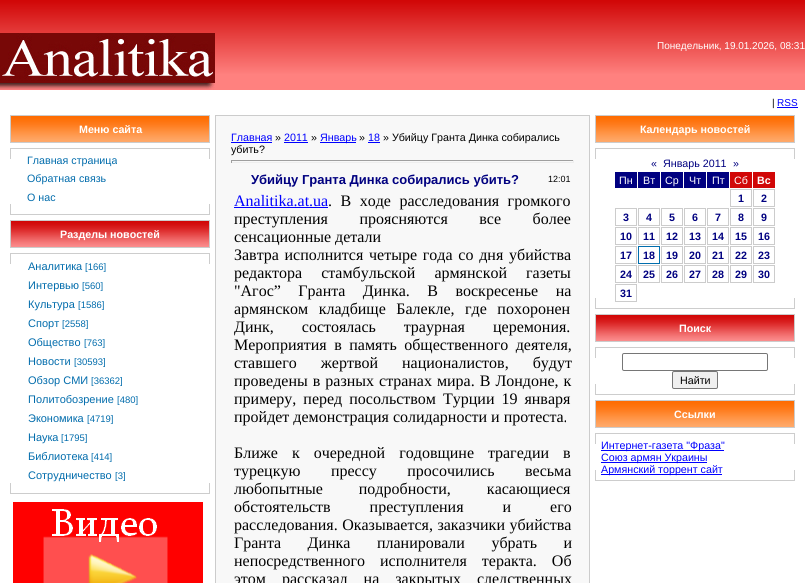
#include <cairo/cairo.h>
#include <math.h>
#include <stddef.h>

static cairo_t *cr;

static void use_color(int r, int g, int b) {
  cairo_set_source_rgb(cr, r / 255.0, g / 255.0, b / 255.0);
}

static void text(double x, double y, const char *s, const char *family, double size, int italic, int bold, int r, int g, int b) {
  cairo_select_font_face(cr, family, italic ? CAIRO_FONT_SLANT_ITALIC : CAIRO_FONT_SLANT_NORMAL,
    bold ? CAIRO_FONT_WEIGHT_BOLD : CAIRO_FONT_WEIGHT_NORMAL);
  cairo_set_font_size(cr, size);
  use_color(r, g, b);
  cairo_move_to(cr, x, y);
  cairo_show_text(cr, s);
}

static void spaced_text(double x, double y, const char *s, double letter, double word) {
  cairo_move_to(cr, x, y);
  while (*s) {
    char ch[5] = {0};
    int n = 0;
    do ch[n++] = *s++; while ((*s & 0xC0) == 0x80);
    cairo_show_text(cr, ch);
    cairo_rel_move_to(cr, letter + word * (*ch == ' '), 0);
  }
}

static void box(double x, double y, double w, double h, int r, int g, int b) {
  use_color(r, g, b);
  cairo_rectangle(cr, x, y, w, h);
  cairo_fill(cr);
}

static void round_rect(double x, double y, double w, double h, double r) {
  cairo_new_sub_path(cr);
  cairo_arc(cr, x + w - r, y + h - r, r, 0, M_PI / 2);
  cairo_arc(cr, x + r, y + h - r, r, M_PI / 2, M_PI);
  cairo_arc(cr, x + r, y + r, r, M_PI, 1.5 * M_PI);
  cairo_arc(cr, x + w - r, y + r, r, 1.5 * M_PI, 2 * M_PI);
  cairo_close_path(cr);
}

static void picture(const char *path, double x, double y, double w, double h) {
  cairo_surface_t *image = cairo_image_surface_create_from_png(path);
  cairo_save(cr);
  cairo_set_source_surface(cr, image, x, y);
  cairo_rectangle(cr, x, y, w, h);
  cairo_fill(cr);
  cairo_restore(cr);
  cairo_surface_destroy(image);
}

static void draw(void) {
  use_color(255, 255, 255);
  cairo_paint(cr);
  picture("img_01.png", 0, 0, 805, 90);
  picture("img_02.png", 0, 33, 215, 57);
  box(777, 107, 21, 1, 0, 0, 255);
  picture("img_03.png", 11, 116, 198, 26);
  cairo_rectangle(cr, 10.5, 115.5, 199, 27);
  use_color(204, 204, 204);
  cairo_set_line_width(cr, 1);
  cairo_stroke(cr);
  box(10, 204, 1, 11, 205, 205, 205);
  box(10, 148, 1, 11, 205, 205, 205);
  box(11, 148, 198, 1, 205, 205, 205);
  box(11, 214, 198, 1, 205, 205, 205);
  box(209, 204, 1, 11, 205, 205, 205);
  box(209, 148, 1, 11, 205, 205, 205);
  picture("img_04.png", 11, 221, 198, 26);
  cairo_rectangle(cr, 10.5, 220.5, 199, 27);
  use_color(204, 204, 204);
  cairo_stroke(cr);
  box(10, 483, 1, 11, 205, 205, 205);
  box(10, 253, 1, 11, 205, 205, 205);
  box(11, 253, 198, 1, 205, 205, 205);
  box(11, 493, 198, 1, 205, 205, 205);
  box(209, 483, 1, 11, 205, 205, 205);
  box(209, 253, 1, 11, 205, 205, 205);
  picture("img_05.png", 13, 502, 190, 81);
  cairo_rectangle(cr, 215.5, 115.5, 374, 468);
  use_color(204, 204, 204);
  cairo_stroke(cr);
  box(216, 116, 373, 467, 248, 248, 248);
  box(231, 142, 41, 1, 0, 0, 255);
  box(284, 142, 24, 1, 0, 0, 255);
  box(320, 142, 36, 1, 0, 0, 255);
  box(368, 142, 12, 1, 0, 0, 255);
  box(231, 160, 343, 1, 159, 159, 159);
  box(573, 160, 1, 3, 238, 238, 238);
  box(231, 162, 343, 1, 238, 238, 238);
  box(231, 160, 1, 3, 159, 159, 159);
  box(234, 207, 94, 1, 0, 0, 255);
  picture("img_03.png", 596, 116, 198, 26);
  cairo_rectangle(cr, 595.5, 115.5, 199, 27);
  use_color(204, 204, 204);
  cairo_stroke(cr);
  box(595, 298, 1, 11, 205, 205, 205);
  box(595, 148, 1, 11, 205, 205, 205);
  box(596, 148, 198, 1, 205, 205, 205);
  box(596, 308, 198, 1, 205, 205, 205);
  box(615, 172, 22, 16, 0, 0, 128);
  box(638, 172, 22, 16, 0, 0, 128);
  box(661, 172, 22, 16, 0, 0, 128);
  box(684, 172, 22, 16, 0, 0, 128);
  box(707, 172, 22, 16, 0, 0, 128);
  box(730, 172, 22, 16, 209, 7, 7);
  box(753, 172, 22, 16, 209, 7, 7);
  cairo_rectangle(cr, 730.5, 189.5, 21, 17);
  use_color(204, 204, 204);
  cairo_stroke(cr);
  cairo_rectangle(cr, 753.5, 189.5, 21, 17);
  cairo_stroke(cr);
  cairo_rectangle(cr, 615.5, 208.5, 21, 17);
  cairo_stroke(cr);
  cairo_rectangle(cr, 638.5, 208.5, 21, 17);
  cairo_stroke(cr);
  cairo_rectangle(cr, 661.5, 208.5, 21, 17);
  cairo_stroke(cr);
  cairo_rectangle(cr, 684.5, 208.5, 21, 17);
  cairo_stroke(cr);
  cairo_rectangle(cr, 707.5, 208.5, 21, 17);
  cairo_stroke(cr);
  cairo_rectangle(cr, 730.5, 208.5, 21, 17);
  cairo_stroke(cr);
  cairo_rectangle(cr, 753.5, 208.5, 21, 17);
  cairo_stroke(cr);
  cairo_rectangle(cr, 615.5, 227.5, 21, 17);
  cairo_stroke(cr);
  cairo_rectangle(cr, 638.5, 227.5, 21, 17);
  cairo_stroke(cr);
  cairo_rectangle(cr, 661.5, 227.5, 21, 17);
  cairo_stroke(cr);
  cairo_rectangle(cr, 684.5, 227.5, 21, 17);
  cairo_stroke(cr);
  cairo_rectangle(cr, 707.5, 227.5, 21, 17);
  cairo_stroke(cr);
  cairo_rectangle(cr, 730.5, 227.5, 21, 17);
  cairo_stroke(cr);
  cairo_rectangle(cr, 753.5, 227.5, 21, 17);
  cairo_stroke(cr);
  cairo_rectangle(cr, 615.5, 246.5, 21, 17);
  cairo_stroke(cr);
  cairo_rectangle(cr, 638.5, 246.5, 21, 17);
  use_color(1, 110, 173);
  cairo_stroke(cr);
  cairo_rectangle(cr, 661.5, 246.5, 21, 17);
  use_color(204, 204, 204);
  cairo_stroke(cr);
  cairo_rectangle(cr, 684.5, 246.5, 21, 17);
  cairo_stroke(cr);
  cairo_rectangle(cr, 707.5, 246.5, 21, 17);
  cairo_stroke(cr);
  cairo_rectangle(cr, 730.5, 246.5, 21, 17);
  cairo_stroke(cr);
  cairo_rectangle(cr, 753.5, 246.5, 21, 17);
  cairo_stroke(cr);
  cairo_rectangle(cr, 615.5, 265.5, 21, 17);
  cairo_stroke(cr);
  cairo_rectangle(cr, 638.5, 265.5, 21, 17);
  cairo_stroke(cr);
  cairo_rectangle(cr, 661.5, 265.5, 21, 17);
  cairo_stroke(cr);
  cairo_rectangle(cr, 684.5, 265.5, 21, 17);
  cairo_stroke(cr);
  cairo_rectangle(cr, 707.5, 265.5, 21, 17);
  cairo_stroke(cr);
  cairo_rectangle(cr, 730.5, 265.5, 21, 17);
  cairo_stroke(cr);
  cairo_rectangle(cr, 753.5, 265.5, 21, 17);
  cairo_stroke(cr);
  cairo_rectangle(cr, 615.5, 284.5, 21, 17);
  cairo_stroke(cr);
  box(794, 298, 1, 11, 205, 205, 205);
  box(794, 148, 1, 11, 205, 205, 205);
  picture("img_04.png", 596, 315, 198, 26);
  cairo_rectangle(cr, 595.5, 314.5, 199, 27);
  use_color(204, 204, 204);
  cairo_stroke(cr);
  box(595, 384, 1, 11, 205, 205, 205);
  box(595, 347, 1, 11, 205, 205, 205);
  box(596, 347, 198, 1, 205, 205, 205);
  box(596, 394, 198, 1, 205, 205, 205);
  round_rect(622.5, 353.5, 145, 17, 1.5);
  use_color(118, 118, 118);
  cairo_stroke(cr);
  use_color(239, 239, 239);
  round_rect(672.5, 371.5, 45, 17, 1.5);
  cairo_fill_preserve(cr);
  use_color(118, 118, 118);
  cairo_stroke(cr);
  box(794, 384, 1, 11, 205, 205, 205);
  box(794, 347, 1, 11, 205, 205, 205);
  picture("img_03.png", 596, 401, 198, 26);
  cairo_rectangle(cr, 595.5, 400.5, 199, 27);
  use_color(204, 204, 204);
  cairo_stroke(cr);
  box(595, 470, 1, 11, 205, 205, 205);
  box(595, 433, 1, 11, 205, 205, 205);
  box(596, 433, 198, 1, 205, 205, 205);
  box(596, 480, 198, 1, 205, 205, 205);
  box(601, 450, 123, 1, 0, 0, 255);
  box(601, 462, 106, 1, 0, 0, 255);
  box(601, 474, 121, 1, 0, 0, 255);
  box(794, 470, 1, 11, 205, 205, 205);
  box(794, 433, 1, 11, 205, 205, 205);
  text(657, 49, "Понедельник, 19.01.2026, 08:31", "Liberation Sans", 10, 0, 0, 255, 255, 255);
  text(772, 106, "|", "Liberation Sans", 10, 0, 0, 0, 0, 0);
  text(777, 106, "RSS", "Liberation Sans", 10, 0, 0, 0, 0, 255);
  text(79, 133, "Меню сайта", "Liberation Sans", 10.7, 0, 1, 255, 255, 255);
  text(27, 164, "Главная страница", "Liberation Sans", 10.7, 0, 0, 1, 108, 172);
  text(27, 182, "Обратная связь", "Liberation Sans", 10.7, 0, 0, 1, 108, 172);
  text(27, 201, "О нас", "Liberation Sans", 10.7, 0, 0, 1, 108, 172);
  text(60, 238, "Разделы новостей", "Liberation Sans", 10.7, 0, 1, 255, 255, 255);
  text(28, 270, "Аналитика", "Liberation Sans", 11, 0, 0, 1, 108, 172);
  text(85, 270, "[166]", "Liberation Sans", 9.5, 0, 0, 1, 108, 172);
  text(28, 289, "Интервью", "Liberation Sans", 11, 0, 0, 1, 108, 172);
  text(82, 289, "[560]", "Liberation Sans", 9.5, 0, 0, 1, 108, 172);
  text(28, 308, "Культура", "Liberation Sans", 11, 0, 0, 1, 108, 172);
  text(78, 308, "[1586]", "Liberation Sans", 9.5, 0, 0, 1, 108, 172);
  text(28, 327, "Спорт", "Liberation Sans", 11, 0, 0, 1, 108, 172);
  text(62, 327, "[2558]", "Liberation Sans", 9.5, 0, 0, 1, 108, 172);
  text(28, 346, "Общество", "Liberation Sans", 11, 0, 0, 1, 108, 172);
  text(84, 346, "[763]", "Liberation Sans", 9.5, 0, 0, 1, 108, 172);
  text(28, 365, "Новости", "Liberation Sans", 11, 0, 0, 1, 108, 172);
  text(74, 365, "[30593]", "Liberation Sans", 9.5, 0, 0, 1, 108, 172);
  text(28, 384, "Обзор СМИ", "Liberation Sans", 11, 0, 0, 1, 108, 172);
  text(91, 384, "[36362]", "Liberation Sans", 9.5, 0, 0, 1, 108, 172);
  text(28, 403, "Политобозрение", "Liberation Sans", 11, 0, 0, 1, 108, 172);
  text(117, 403, "[480]", "Liberation Sans", 9.5, 0, 0, 1, 108, 172);
  text(28, 422, "Экономика", "Liberation Sans", 11, 0, 0, 1, 108, 172);
  text(87, 422, "[4719]", "Liberation Sans", 9.5, 0, 0, 1, 108, 172);
  text(28, 441, "Наука", "Liberation Sans", 11, 0, 0, 1, 108, 172);
  text(61, 441, "[1795]", "Liberation Sans", 9.5, 0, 0, 1, 108, 172);
  text(28, 460, "Библиотека", "Liberation Sans", 11, 0, 0, 1, 108, 172);
  text(91, 460, "[414]", "Liberation Sans", 9.5, 0, 0, 1, 108, 172);
  text(28, 479, "Сотрудничество", "Liberation Sans", 11, 0, 0, 1, 108, 172);
  text(115, 479, "[3]", "Liberation Sans", 9.5, 0, 0, 1, 108, 172);
  text(231, 141, "Главная", "Liberation Sans", 10.7, 0, 0, 0, 0, 255);
  text(275, 141, "»", "Liberation Sans", 10.7, 0, 0, 0, 0, 0);
  text(284, 141, "2011", "Liberation Sans", 10.7, 0, 0, 0, 0, 255);
  text(311, 141, "»", "Liberation Sans", 10.7, 0, 0, 0, 0, 0);
  text(320, 141, "Январь", "Liberation Sans", 10.7, 0, 0, 0, 0, 255);
  text(359, 141, "»", "Liberation Sans", 10.7, 0, 0, 0, 0, 0);
  text(368, 141, "18", "Liberation Sans", 10.7, 0, 0, 0, 0, 255);
  text(383, 141, "» Убийцу Гранта Динка собирались", "Liberation Sans", 10.7, 0, 0, 0, 0, 0);
  text(231, 153, "убить?", "Liberation Sans", 10.7, 0, 0, 0, 0, 0);
  text(251, 184, "Убийцу Гранта Динка собирались убить?", "Liberation Sans", 13, 0, 1, 0, 0, 128);
  text(548, 182, "12:01", "Liberation Sans", 9, 0, 0, 0, 0, 0);
  text(234, 206, "Analitika.at.ua", "Liberation Serif", 16, 0, 0, 0, 0, 255);
  use_color(0, 0, 0);
  spaced_text(328, 206, ". В ходе расследования громкого", 0, 4.5);
  spaced_text(234, 224, "преступления проясняются все более", 0, 27.5);
  text(234, 242, "сенсационные детали", "Liberation Serif", 16, 0, 0, 0, 0, 0);
  spaced_text(234, 260, "Завтра исполнится четыре года со дня убийства", 0, 1.75);
  spaced_text(234, 278, "редактора стамбульской армянской газеты", 0, 15);
  spaced_text(234, 296, "\"Агос” Гранта Динка. В воскресенье на", 0, 13.5);
  spaced_text(234, 314, "армянском кладбище Балекле, где похоронен", 0, 6.5);
  spaced_text(234, 332, "Динк, состоялась траурная церемония.", 0, 24);
  spaced_text(234, 350, "Мероприятия в память общественного деятеля,", 0, 3.5);
  spaced_text(234, 368, "ставшего жертвой националистов, будут", 0, 20);
  spaced_text(234, 386, "проведены в разных странах мира. В Лондоне, к", 0, 1);
  spaced_text(234, 404, "примеру, перед посольством Турции 19 января", 0, 3);
  text(234, 422, "пройдет демонстрация солидарности и протеста.", "Liberation Serif", 16, 0, 0, 0, 0, 0);
  spaced_text(234, 458, "Ближе к очередной годовщине трагедии в", 0, 10);
  spaced_text(234, 476, "турецкую прессу просочились весьма", 0, 26.5);
  spaced_text(234, 494, "любопытные подробности, касающиеся", 0, 32);
  spaced_text(234, 512, "обстоятельств преступления и его", 0, 35);
  spaced_text(234, 530, "расследования. Оказывается, заказчики убийства", 0, 0.5);
  spaced_text(234, 548, "Гранта Динка планировали убрать и", 0, 22.5);
  spaced_text(234, 566, "непосредственного исполнителя теракта. Об", 0, 11);
  spaced_text(234, 584, "этом рассказал на закрытых следственных", 0, 12);
  text(640, 133, "Календарь новостей", "Liberation Sans", 10.7, 0, 1, 255, 255, 255);
  text(651, 167, "«", "Liberation Sans", 10.7, 0, 0, 0, 0, 128);
  text(663, 167, "Январь 2011", "Liberation Sans", 10.7, 0, 0, 0, 0, 128);
  text(733, 167, "»", "Liberation Sans", 10.7, 0, 0, 0, 0, 128);
  text(619, 184, "Пн", "Liberation Sans", 10.7, 0, 0, 255, 255, 255);
  text(643, 184, "Вт", "Liberation Sans", 10.7, 0, 0, 255, 255, 255);
  text(665, 184, "Ср", "Liberation Sans", 10.7, 0, 0, 255, 255, 255);
  text(689, 184, "Чт", "Liberation Sans", 10.7, 0, 0, 255, 255, 255);
  text(712, 184, "Пт", "Liberation Sans", 10.7, 0, 0, 255, 255, 255);
  text(734, 184, "Сб", "Liberation Sans", 10.7, 0, 0, 255, 255, 255);
  text(757, 184, "Вс", "Liberation Sans", 10.7, 0, 1, 255, 255, 255);
  text(738, 202, "1", "Liberation Sans", 10.7, 0, 1, 0, 0, 128);
  text(761, 202, "2", "Liberation Sans", 10.7, 0, 1, 0, 0, 128);
  text(623, 221, "3", "Liberation Sans", 10.7, 0, 1, 0, 0, 128);
  text(646, 221, "4", "Liberation Sans", 10.7, 0, 1, 0, 0, 128);
  text(669, 221, "5", "Liberation Sans", 10.7, 0, 1, 0, 0, 128);
  text(692, 221, "6", "Liberation Sans", 10.7, 0, 1, 0, 0, 128);
  text(715, 221, "7", "Liberation Sans", 10.7, 0, 1, 0, 0, 128);
  text(738, 221, "8", "Liberation Sans", 10.7, 0, 1, 0, 0, 128);
  text(761, 221, "9", "Liberation Sans", 10.7, 0, 1, 0, 0, 128);
  text(620, 240, "10", "Liberation Sans", 10.7, 0, 1, 0, 0, 128);
  text(643, 240, "11", "Liberation Sans", 10.7, 0, 1, 0, 0, 128);
  text(666, 240, "12", "Liberation Sans", 10.7, 0, 1, 0, 0, 128);
  text(689, 240, "13", "Liberation Sans", 10.7, 0, 1, 0, 0, 128);
  text(712, 240, "14", "Liberation Sans", 10.7, 0, 1, 0, 0, 128);
  text(735, 240, "15", "Liberation Sans", 10.7, 0, 1, 0, 0, 128);
  text(758, 240, "16", "Liberation Sans", 10.7, 0, 1, 0, 0, 128);
  text(620, 259, "17", "Liberation Sans", 10.7, 0, 1, 0, 0, 128);
  text(643, 259, "18", "Liberation Sans", 10.7, 0, 1, 0, 0, 128);
  text(666, 259, "19", "Liberation Sans", 10.7, 0, 1, 0, 0, 128);
  text(689, 259, "20", "Liberation Sans", 10.7, 0, 1, 0, 0, 128);
  text(712, 259, "21", "Liberation Sans", 10.7, 0, 1, 0, 0, 128);
  text(735, 259, "22", "Liberation Sans", 10.7, 0, 1, 0, 0, 128);
  text(758, 259, "23", "Liberation Sans", 10.7, 0, 1, 0, 0, 128);
  text(620, 278, "24", "Liberation Sans", 10.7, 0, 1, 0, 0, 128);
  text(643, 278, "25", "Liberation Sans", 10.7, 0, 1, 0, 0, 128);
  text(666, 278, "26", "Liberation Sans", 10.7, 0, 1, 0, 0, 128);
  text(689, 278, "27", "Liberation Sans", 10.7, 0, 1, 0, 0, 128);
  text(712, 278, "28", "Liberation Sans", 10.7, 0, 1, 0, 0, 128);
  text(735, 278, "29", "Liberation Sans", 10.7, 0, 1, 0, 0, 128);
  text(758, 278, "30", "Liberation Sans", 10.7, 0, 1, 0, 0, 128);
  text(620, 297, "31", "Liberation Sans", 10.7, 0, 1, 0, 0, 128);
  text(679, 332, "Поиск", "Liberation Sans", 10.7, 0, 1, 255, 255, 255);
  text(680, 384, "Найти", "Liberation Sans", 10.7, 0, 0, 0, 0, 0);
  text(674, 418, "Ссылки", "Liberation Sans", 10.7, 0, 1, 255, 255, 255);
  text(601, 449, "Интернет-газета \"Фраза\"", "Liberation Sans", 10.7, 0, 0, 0, 0, 255);
  text(601, 461, "Союз армян Украины", "Liberation Sans", 10.7, 0, 0, 0, 0, 255);
  text(601, 473, "Армянский торрент сайт", "Liberation Sans", 10.7, 0, 0, 0, 0, 255);
}

int main(void) {
  cairo_surface_t *surface = cairo_image_surface_create(CAIRO_FORMAT_RGB24, 805, 583);
  cr = cairo_create(surface);
  cairo_font_options_t *options = cairo_font_options_create();
  cairo_font_options_set_hint_metrics(options, CAIRO_HINT_METRICS_OFF);
  cairo_font_options_set_hint_style(options, CAIRO_HINT_STYLE_NONE);
  cairo_set_font_options(cr, options);
  cairo_set_miter_limit(cr, 4);
  draw();
  cairo_surface_write_to_png(surface, "out.png");
  cairo_font_options_destroy(options);
  cairo_destroy(cr);
  cairo_surface_destroy(surface);
  return 0;
}
